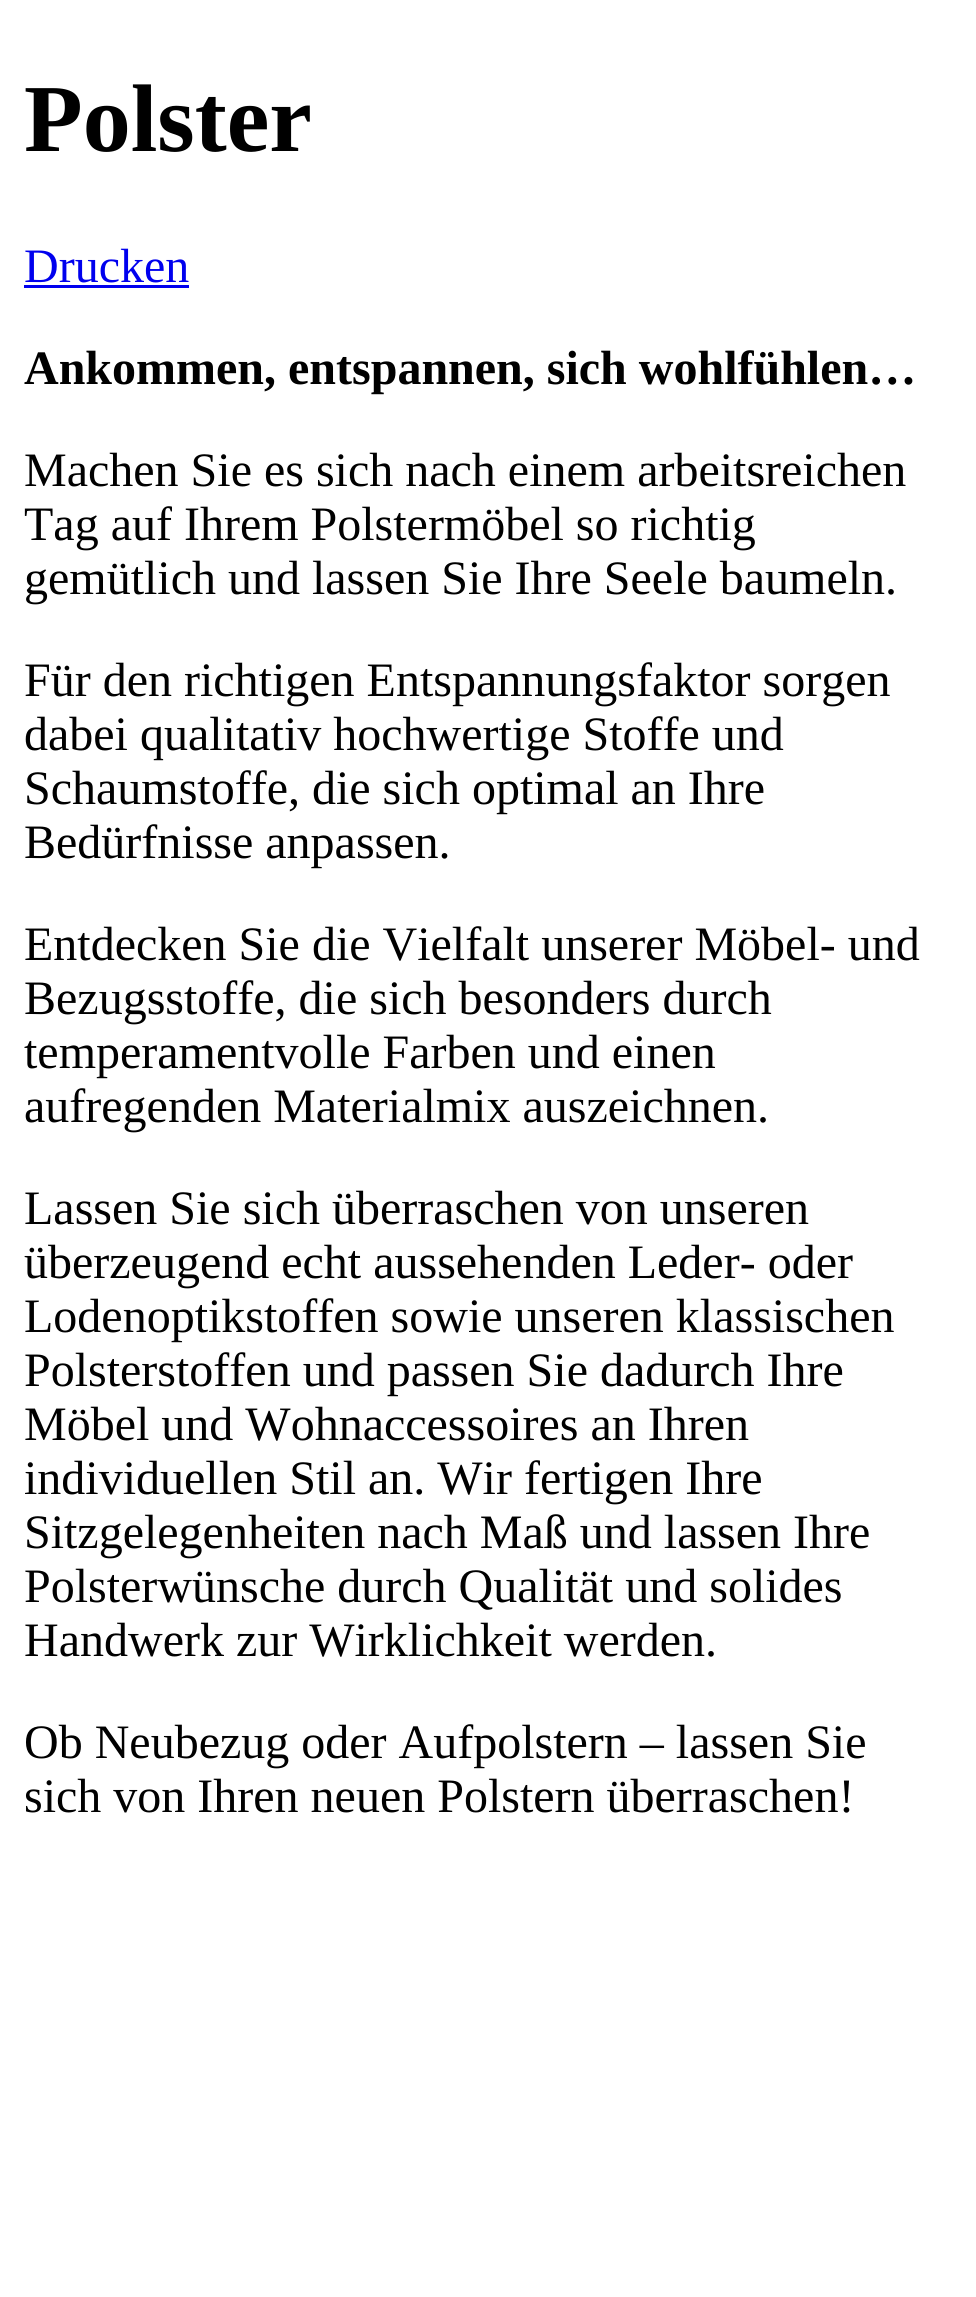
#include <cairo/cairo.h>
#include <math.h>
#include <stddef.h>

static cairo_t *cr;

static void use_color(int r, int g, int b) {
  cairo_set_source_rgb(cr, r / 255.0, g / 255.0, b / 255.0);
}

static void text(double x, double y, const char *s, const char *family, double size, int italic, int bold, int r, int g, int b) {
  cairo_select_font_face(cr, family, italic ? CAIRO_FONT_SLANT_ITALIC : CAIRO_FONT_SLANT_NORMAL,
    bold ? CAIRO_FONT_WEIGHT_BOLD : CAIRO_FONT_WEIGHT_NORMAL);
  cairo_set_font_size(cr, size);
  use_color(r, g, b);
  cairo_move_to(cr, x, y);
  cairo_show_text(cr, s);
}

static void box(double x, double y, double w, double h, int r, int g, int b) {
  use_color(r, g, b);
  cairo_rectangle(cr, x, y, w, h);
  cairo_fill(cr);
}

static void draw(void) {
  use_color(255, 255, 255);
  cairo_paint(cr);
  box(24, 285, 165, 3, 0, 0, 238);
  text(24, 151, "Polster", "Liberation Serif", 96, 0, 1, 0, 0, 0);
  text(24, 282, "Drucken", "Liberation Serif", 48, 0, 0, 0, 0, 238);
  text(24, 384, "Ankommen, entspannen, sich wohlfühlen…", "Liberation Serif", 48, 0, 1, 0, 0, 0);
  text(24, 486, "Machen Sie es sich nach einem arbeitsreichen", "Liberation Serif", 48, 0, 0, 0, 0, 0);
  text(24, 540, "Tag auf Ihrem Polstermöbel so richtig", "Liberation Serif", 48, 0, 0, 0, 0, 0);
  text(24, 594, "gemütlich und lassen Sie Ihre Seele baumeln.", "Liberation Serif", 48, 0, 0, 0, 0, 0);
  text(24, 696, "Für den richtigen Entspannungsfaktor sorgen", "Liberation Serif", 48, 0, 0, 0, 0, 0);
  text(24, 750, "dabei qualitativ hochwertige Stoffe und", "Liberation Serif", 48, 0, 0, 0, 0, 0);
  text(24, 804, "Schaumstoffe, die sich optimal an Ihre", "Liberation Serif", 48, 0, 0, 0, 0, 0);
  text(24, 858, "Bedürfnisse anpassen.", "Liberation Serif", 48, 0, 0, 0, 0, 0);
  text(24, 960, "Entdecken Sie die Vielfalt unserer Möbel- und", "Liberation Serif", 48, 0, 0, 0, 0, 0);
  text(24, 1014, "Bezugsstoffe, die sich besonders durch", "Liberation Serif", 48, 0, 0, 0, 0, 0);
  text(24, 1068, "temperamentvolle Farben und einen", "Liberation Serif", 48, 0, 0, 0, 0, 0);
  text(24, 1122, "aufregenden Materialmix auszeichnen.", "Liberation Serif", 48, 0, 0, 0, 0, 0);
  text(24, 1224, "Lassen Sie sich überraschen von unseren", "Liberation Serif", 48, 0, 0, 0, 0, 0);
  text(24, 1278, "überzeugend echt aussehenden Leder- oder", "Liberation Serif", 48, 0, 0, 0, 0, 0);
  text(24, 1332, "Lodenoptikstoffen sowie unseren klassischen", "Liberation Serif", 48, 0, 0, 0, 0, 0);
  text(24, 1386, "Polsterstoffen und passen Sie dadurch Ihre", "Liberation Serif", 48, 0, 0, 0, 0, 0);
  text(24, 1440, "Möbel und Wohnaccessoires an Ihren", "Liberation Serif", 48, 0, 0, 0, 0, 0);
  text(24, 1494, "individuellen Stil an. Wir fertigen Ihre", "Liberation Serif", 48, 0, 0, 0, 0, 0);
  text(24, 1548, "Sitzgelegenheiten nach Maß und lassen Ihre", "Liberation Serif", 48, 0, 0, 0, 0, 0);
  text(24, 1602, "Polsterwünsche durch Qualität und solides", "Liberation Serif", 48, 0, 0, 0, 0, 0);
  text(24, 1656, "Handwerk zur Wirklichkeit werden.", "Liberation Serif", 48, 0, 0, 0, 0, 0);
  text(24, 1758, "Ob Neubezug oder Aufpolstern – lassen Sie", "Liberation Serif", 48, 0, 0, 0, 0, 0);
  text(24, 1812, "sich von Ihren neuen Polstern überraschen!", "Liberation Serif", 48, 0, 0, 0, 0, 0);
}

int main(void) {
  cairo_surface_t *surface = cairo_image_surface_create(CAIRO_FORMAT_RGB24, 976, 2297);
  cr = cairo_create(surface);
  cairo_font_options_t *options = cairo_font_options_create();
  cairo_font_options_set_hint_metrics(options, CAIRO_HINT_METRICS_OFF);
  cairo_font_options_set_hint_style(options, CAIRO_HINT_STYLE_NONE);
  cairo_set_font_options(cr, options);
  cairo_set_miter_limit(cr, 4);
  draw();
  cairo_surface_write_to_png(surface, "out.png");
  cairo_font_options_destroy(options);
  cairo_destroy(cr);
  cairo_surface_destroy(surface);
  return 0;
}
